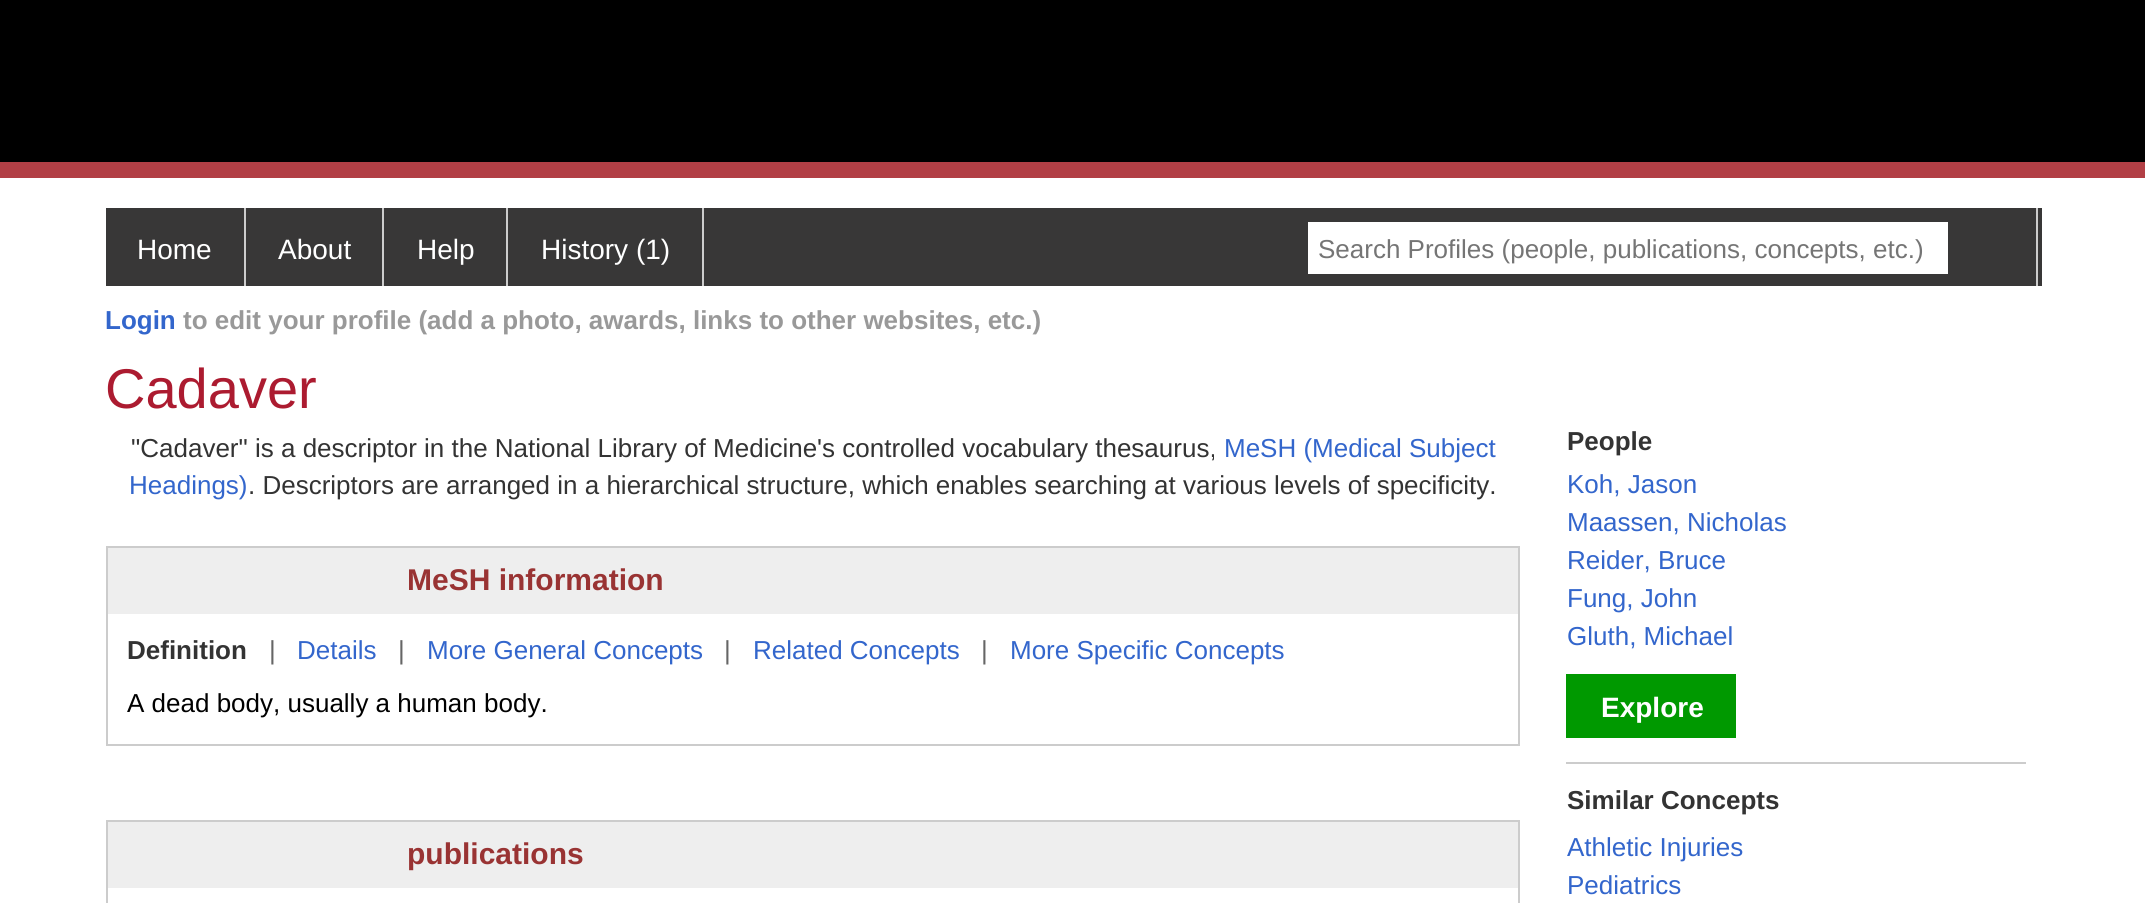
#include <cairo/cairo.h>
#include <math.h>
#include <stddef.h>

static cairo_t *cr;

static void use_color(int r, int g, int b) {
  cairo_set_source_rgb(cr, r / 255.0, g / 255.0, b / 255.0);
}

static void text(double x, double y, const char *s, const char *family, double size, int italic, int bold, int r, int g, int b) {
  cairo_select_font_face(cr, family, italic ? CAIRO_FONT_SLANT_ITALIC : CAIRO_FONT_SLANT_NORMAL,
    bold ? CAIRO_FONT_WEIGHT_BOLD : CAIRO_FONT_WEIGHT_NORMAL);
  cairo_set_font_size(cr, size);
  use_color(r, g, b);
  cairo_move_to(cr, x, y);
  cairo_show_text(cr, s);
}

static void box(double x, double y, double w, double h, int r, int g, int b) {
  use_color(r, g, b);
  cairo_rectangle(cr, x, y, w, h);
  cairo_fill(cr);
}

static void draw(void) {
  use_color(255, 255, 255);
  cairo_paint(cr);
  box(0, 0, 2145, 162, 0, 0, 0);
  box(0, 162, 2145, 16, 178, 63, 69);
  box(106, 208, 1936, 78, 56, 55, 55);
  box(244, 208, 2, 78, 204, 204, 204);
  box(382, 208, 2, 78, 204, 204, 204);
  box(506, 208, 2, 78, 204, 204, 204);
  box(702, 208, 2, 78, 204, 204, 204);
  box(1308, 222, 640, 52, 255, 255, 255);
  box(2036, 208, 2, 78, 204, 204, 204);
  cairo_rectangle(cr, 107, 547, 1412, 198);
  cairo_stroke(cr);
  box(108, 548, 1410, 66, 238, 238, 238);
  cairo_rectangle(cr, 107, 821, 1412, 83);
  use_color(204, 204, 204);
  cairo_stroke(cr);
  box(108, 822, 1410, 66, 238, 238, 238);
  box(1566, 674, 170, 64, 0, 153, 0);
  box(1566, 762, 460, 2, 204, 204, 204);
  text(137, 259, "Home", "Liberation Sans", 28, 0, 0, 255, 255, 255);
  text(278, 259, "About", "Liberation Sans", 28, 0, 0, 255, 255, 255);
  text(417, 259, "Help", "Liberation Sans", 28, 0, 0, 255, 255, 255);
  text(541, 259, "History (1)", "Liberation Sans", 28, 0, 0, 255, 255, 255);
  text(1318, 258, "Search Profiles (people, publications, concepts, etc.)", "Liberation Sans", 26, 0, 0, 117, 117, 117);
  text(105, 329, "Login", "Liberation Sans", 26, 0, 1, 51, 102, 204);
  text(183, 329, "to edit your profile (add a photo, awards, links to other websites, etc.)", "Liberation Sans", 26, 0, 1, 153, 153, 153);
  text(105, 408, "Cadaver", "Liberation Sans", 56, 0, 0, 172, 27, 48);
  text(131, 457, "\"Cadaver\" is a descriptor in the National Library of Medicine's controlled vocabulary thesaurus,", "Liberation Sans", 26, 0, 0, 51, 51, 51);
  text(1224, 457, "MeSH (Medical Subject", "Liberation Sans", 26, 0, 0, 51, 102, 204);
  text(129, 494, "Headings)", "Liberation Sans", 26, 0, 0, 51, 102, 204);
  text(248, 494, ". Descriptors are arranged in a hierarchical structure, which enables searching at various levels of specificity.", "Liberation Sans", 26, 0, 0, 51, 51, 51);
  text(407, 590, "MeSH information", "Liberation Sans", 30, 0, 1, 153, 51, 51);
  text(127, 659, "Definition", "Liberation Sans", 26, 0, 1, 51, 51, 51);
  text(269, 659, "|", "Liberation Sans", 26, 0, 0, 102, 102, 102);
  text(297, 659, "Details", "Liberation Sans", 26, 0, 0, 51, 102, 204);
  text(398, 659, "|", "Liberation Sans", 26, 0, 0, 102, 102, 102);
  text(427, 659, "More General Concepts", "Liberation Sans", 26, 0, 0, 51, 102, 204);
  text(724, 659, "|", "Liberation Sans", 26, 0, 0, 102, 102, 102);
  text(753, 659, "Related Concepts", "Liberation Sans", 26, 0, 0, 51, 102, 204);
  text(981, 659, "|", "Liberation Sans", 26, 0, 0, 102, 102, 102);
  text(1010, 659, "More Specific Concepts", "Liberation Sans", 26, 0, 0, 51, 102, 204);
  text(127, 712, "A dead body, usually a human body.", "Liberation Sans", 26, 0, 0, 0, 0, 0);
  text(407, 864, "publications", "Liberation Sans", 30, 0, 1, 153, 51, 51);
  text(1567, 450, "People", "Liberation Sans", 26, 0, 1, 51, 51, 51);
  text(1567, 493, "Koh, Jason", "Liberation Sans", 26, 0, 0, 51, 102, 204);
  text(1567, 531, "Maassen, Nicholas", "Liberation Sans", 26, 0, 0, 51, 102, 204);
  text(1567, 569, "Reider, Bruce", "Liberation Sans", 26, 0, 0, 51, 102, 204);
  text(1567, 607, "Fung, John", "Liberation Sans", 26, 0, 0, 51, 102, 204);
  text(1567, 645, "Gluth, Michael", "Liberation Sans", 26, 0, 0, 51, 102, 204);
  text(1601, 717, "Explore", "Liberation Sans", 28, 0, 1, 255, 255, 255);
  text(1567, 809, "Similar Concepts", "Liberation Sans", 26, 0, 1, 51, 51, 51);
  text(1567, 856, "Athletic Injuries", "Liberation Sans", 26, 0, 0, 51, 102, 204);
  text(1567, 894, "Pediatrics", "Liberation Sans", 26, 0, 0, 51, 102, 204);
}

int main(void) {
  cairo_surface_t *surface = cairo_image_surface_create(CAIRO_FORMAT_RGB24, 2145, 903);
  cr = cairo_create(surface);
  cairo_font_options_t *options = cairo_font_options_create();
  cairo_font_options_set_hint_metrics(options, CAIRO_HINT_METRICS_OFF);
  cairo_font_options_set_hint_style(options, CAIRO_HINT_STYLE_NONE);
  cairo_set_font_options(cr, options);
  cairo_set_miter_limit(cr, 4);
  draw();
  cairo_surface_write_to_png(surface, "out.png");
  cairo_font_options_destroy(options);
  cairo_destroy(cr);
  cairo_surface_destroy(surface);
  return 0;
}
